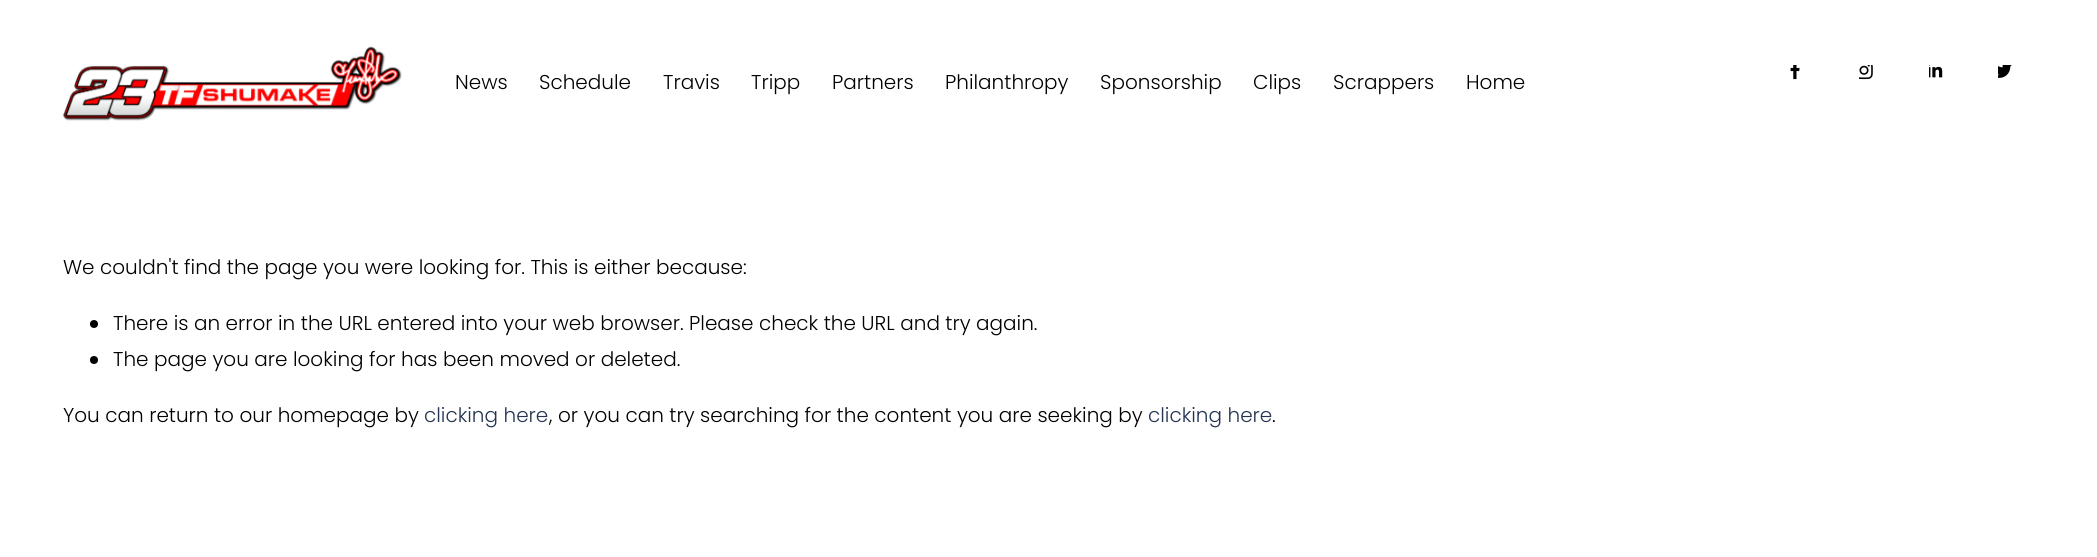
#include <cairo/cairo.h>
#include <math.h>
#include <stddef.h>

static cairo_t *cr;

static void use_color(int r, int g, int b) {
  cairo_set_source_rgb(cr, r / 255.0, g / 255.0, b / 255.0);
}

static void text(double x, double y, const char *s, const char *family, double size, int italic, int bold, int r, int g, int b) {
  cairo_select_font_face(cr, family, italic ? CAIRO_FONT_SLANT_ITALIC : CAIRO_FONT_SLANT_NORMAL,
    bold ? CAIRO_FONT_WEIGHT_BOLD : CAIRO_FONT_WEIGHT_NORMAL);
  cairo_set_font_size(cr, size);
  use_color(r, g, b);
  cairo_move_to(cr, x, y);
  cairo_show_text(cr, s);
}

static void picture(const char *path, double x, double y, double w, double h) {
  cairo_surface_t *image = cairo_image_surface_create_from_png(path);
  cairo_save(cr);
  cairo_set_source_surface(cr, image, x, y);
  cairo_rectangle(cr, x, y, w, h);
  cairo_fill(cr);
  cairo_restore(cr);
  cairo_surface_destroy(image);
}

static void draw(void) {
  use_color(255, 255, 255);
  cairo_paint(cr);
  picture("img_01.png", 63, 46, 339, 75);
  picture("img_02.png", 1790, 65, 10, 15);
  picture("img_03.png", 1859, 65, 14, 15);
  picture("img_04.png", 1929, 65, 14, 13);
  picture("img_05.png", 1998, 65, 14, 13);
  use_color(0, 0, 0);
  cairo_arc(cr, 94, 324, 4, 0, 2 * M_PI);
  cairo_fill(cr);
  cairo_arc(cr, 94, 360, 4, 0, 2 * M_PI);
  cairo_fill(cr);
  text(455, 89, "News", "Poppins Light", 20, 0, 0, 0, 0, 0);
  text(539, 89, "Schedule", "Poppins Light", 20, 0, 0, 0, 0, 0);
  text(663, 89, "Travis", "Poppins Light", 20, 0, 0, 0, 0, 0);
  text(751, 89, "Tripp", "Poppins Light", 20, 0, 0, 0, 0, 0);
  text(832, 89, "Partners", "Poppins Light", 20, 0, 0, 0, 0, 0);
  text(945, 89, "Philanthropy", "Poppins Light", 20, 0, 0, 0, 0, 0);
  text(1100, 89, "Sponsorship", "Poppins Light", 20, 0, 0, 0, 0, 0);
  text(1253, 89, "Clips", "Poppins Light", 20, 0, 0, 0, 0, 0);
  text(1333, 89, "Scrappers", "Poppins Light", 20, 0, 0, 0, 0, 0);
  text(1466, 89, "Home", "Poppins Light", 20, 0, 0, 0, 0, 0);
  text(63, 274, "We couldn't find the page you were looking for. This is either because:", "Poppins Light", 20, 0, 0, 0, 0, 0);
  text(113, 330, "There is an error in the URL entered into your web browser. Please check the URL and try again.", "Poppins Light", 20, 0, 0, 0, 0, 0);
  text(113, 366, "The page you are looking for has been moved or deleted.", "Poppins Light", 20, 0, 0, 0, 0, 0);
  text(63, 422, "You can return to our homepage by", "Poppins Light", 20, 0, 0, 0, 0, 0);
  text(424, 422, "clicking here", "Poppins Light", 20, 0, 0, 37, 53, 81);
  text(549, 422, ", or you can try searching for the content you are seeking by", "Poppins Light", 20, 0, 0, 0, 0, 0);
  text(1148, 422, "clicking here", "Poppins Light", 20, 0, 0, 37, 53, 81);
  text(1272, 422, ".", "Poppins Light", 20, 0, 0, 0, 0, 0);
}

int main(void) {
  cairo_surface_t *surface = cairo_image_surface_create(CAIRO_FORMAT_RGB24, 2097, 557);
  cr = cairo_create(surface);
  cairo_font_options_t *options = cairo_font_options_create();
  cairo_font_options_set_hint_metrics(options, CAIRO_HINT_METRICS_OFF);
  cairo_font_options_set_hint_style(options, CAIRO_HINT_STYLE_NONE);
  cairo_set_font_options(cr, options);
  cairo_set_miter_limit(cr, 4);
  draw();
  cairo_surface_write_to_png(surface, "out.png");
  cairo_font_options_destroy(options);
  cairo_destroy(cr);
  cairo_surface_destroy(surface);
  return 0;
}
